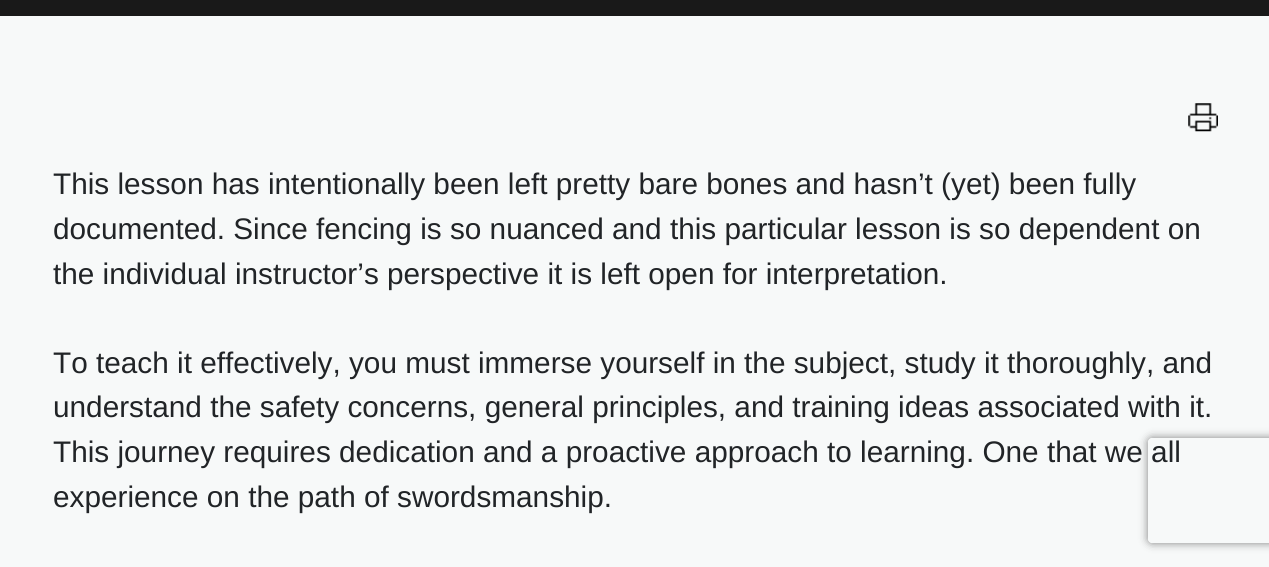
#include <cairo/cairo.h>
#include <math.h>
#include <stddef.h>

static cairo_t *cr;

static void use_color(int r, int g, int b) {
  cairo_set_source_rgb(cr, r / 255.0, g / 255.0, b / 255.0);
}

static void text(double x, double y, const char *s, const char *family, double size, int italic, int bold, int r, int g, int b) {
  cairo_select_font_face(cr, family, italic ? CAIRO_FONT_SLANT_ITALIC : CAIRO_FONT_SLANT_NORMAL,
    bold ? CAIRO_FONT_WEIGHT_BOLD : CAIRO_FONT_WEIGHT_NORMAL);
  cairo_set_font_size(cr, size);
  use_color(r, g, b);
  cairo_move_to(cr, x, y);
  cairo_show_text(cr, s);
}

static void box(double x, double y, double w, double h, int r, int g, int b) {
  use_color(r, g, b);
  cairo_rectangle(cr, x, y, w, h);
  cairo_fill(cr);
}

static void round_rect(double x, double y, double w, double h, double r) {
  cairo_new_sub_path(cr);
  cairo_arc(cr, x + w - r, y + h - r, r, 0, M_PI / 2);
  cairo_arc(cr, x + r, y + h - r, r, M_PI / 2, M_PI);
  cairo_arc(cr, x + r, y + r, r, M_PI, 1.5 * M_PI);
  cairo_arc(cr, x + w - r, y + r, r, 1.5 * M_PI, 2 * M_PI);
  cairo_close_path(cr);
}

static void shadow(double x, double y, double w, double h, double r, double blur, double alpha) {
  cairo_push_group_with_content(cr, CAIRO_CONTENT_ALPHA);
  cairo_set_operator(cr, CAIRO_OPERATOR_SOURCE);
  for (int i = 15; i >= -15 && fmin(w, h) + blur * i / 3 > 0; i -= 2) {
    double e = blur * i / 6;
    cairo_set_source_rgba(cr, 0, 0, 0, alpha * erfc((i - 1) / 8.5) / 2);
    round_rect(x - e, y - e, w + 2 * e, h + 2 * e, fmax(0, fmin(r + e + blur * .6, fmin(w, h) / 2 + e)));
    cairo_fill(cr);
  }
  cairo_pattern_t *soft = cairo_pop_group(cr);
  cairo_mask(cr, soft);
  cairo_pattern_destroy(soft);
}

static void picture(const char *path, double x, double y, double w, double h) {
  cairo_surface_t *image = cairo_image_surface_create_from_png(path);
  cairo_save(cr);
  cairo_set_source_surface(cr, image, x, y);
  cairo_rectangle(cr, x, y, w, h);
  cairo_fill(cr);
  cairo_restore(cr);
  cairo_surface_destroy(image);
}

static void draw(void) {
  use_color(247, 249, 249);
  cairo_paint(cr);
  box(0, 0, 1269, 16, 25, 25, 25);
  picture("img_01.png", 1188, 103, 30, 29);
  cairo_save(cr);
  cairo_set_fill_rule(cr, CAIRO_FILL_RULE_EVEN_ODD);
  cairo_new_path(cr);
  cairo_move_to(cr, 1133, 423);
  cairo_line_to(cr, 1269, 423);
  cairo_line_to(cr, 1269, 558);
  cairo_line_to(cr, 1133, 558);
  cairo_close_path(cr);
  cairo_move_to(cr, 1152, 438);
  cairo_line_to(cr, 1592, 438);
  cairo_curve_to(cr, 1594, 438, 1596, 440, 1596, 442);
  cairo_line_to(cr, 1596, 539);
  cairo_curve_to(cr, 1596, 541, 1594, 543, 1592, 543);
  cairo_line_to(cr, 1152, 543);
  cairo_curve_to(cr, 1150, 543, 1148, 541, 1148, 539);
  cairo_line_to(cr, 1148, 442);
  cairo_curve_to(cr, 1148, 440, 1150, 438, 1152, 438);
  cairo_close_path(cr);
  cairo_clip(cr);
  use_color(128, 128, 128);
  shadow(1148, 438, 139, 105, 4, 4.5, 1);
  cairo_restore(cr);
  text(53, 194, "This lesson has intentionally been left pretty bare bones and hasn’t (yet) been fully", "Liberation Sans", 29.75, 0, 0, 33, 36, 39);
  text(53, 239, "documented. Since fencing is so nuanced and this particular lesson is so dependent on", "Liberation Sans", 29.75, 0, 0, 33, 36, 39);
  text(53, 284, "the individual instructor’s perspective it is left open for interpretation.", "Liberation Sans", 29.75, 0, 0, 33, 36, 39);
  text(53, 373, "To teach it effectively, you must immerse yourself in the subject, study it thoroughly, and", "Liberation Sans", 29.75, 0, 0, 33, 36, 39);
  text(53, 417, "understand the safety concerns, general principles, and training ideas associated with it.", "Liberation Sans", 29.75, 0, 0, 33, 36, 39);
  text(53, 462, "This journey requires dedication and a proactive approach to learning. One that we all", "Liberation Sans", 29.75, 0, 0, 33, 36, 39);
  text(53, 507, "experience on the path of swordsmanship.", "Liberation Sans", 29.75, 0, 0, 33, 36, 39);
}

int main(void) {
  cairo_surface_t *surface = cairo_image_surface_create(CAIRO_FORMAT_RGB24, 1269, 567);
  cr = cairo_create(surface);
  cairo_font_options_t *options = cairo_font_options_create();
  cairo_font_options_set_hint_metrics(options, CAIRO_HINT_METRICS_OFF);
  cairo_font_options_set_hint_style(options, CAIRO_HINT_STYLE_NONE);
  cairo_set_font_options(cr, options);
  cairo_set_miter_limit(cr, 4);
  draw();
  cairo_surface_write_to_png(surface, "out.png");
  cairo_font_options_destroy(options);
  cairo_destroy(cr);
  cairo_surface_destroy(surface);
  return 0;
}
